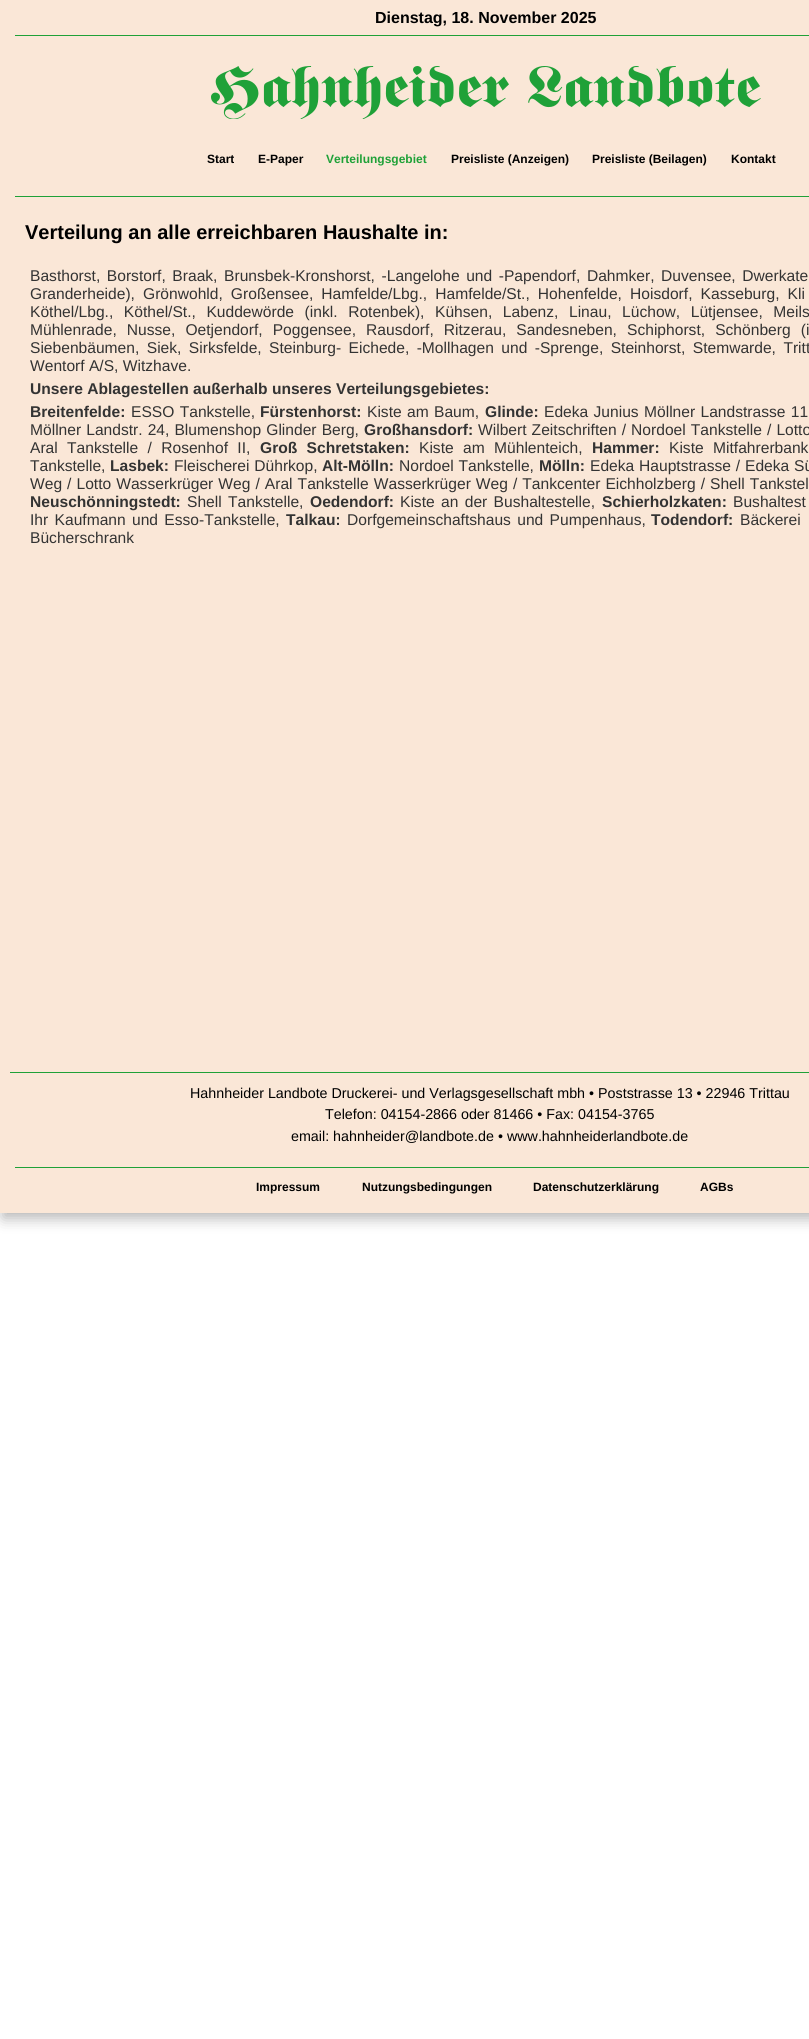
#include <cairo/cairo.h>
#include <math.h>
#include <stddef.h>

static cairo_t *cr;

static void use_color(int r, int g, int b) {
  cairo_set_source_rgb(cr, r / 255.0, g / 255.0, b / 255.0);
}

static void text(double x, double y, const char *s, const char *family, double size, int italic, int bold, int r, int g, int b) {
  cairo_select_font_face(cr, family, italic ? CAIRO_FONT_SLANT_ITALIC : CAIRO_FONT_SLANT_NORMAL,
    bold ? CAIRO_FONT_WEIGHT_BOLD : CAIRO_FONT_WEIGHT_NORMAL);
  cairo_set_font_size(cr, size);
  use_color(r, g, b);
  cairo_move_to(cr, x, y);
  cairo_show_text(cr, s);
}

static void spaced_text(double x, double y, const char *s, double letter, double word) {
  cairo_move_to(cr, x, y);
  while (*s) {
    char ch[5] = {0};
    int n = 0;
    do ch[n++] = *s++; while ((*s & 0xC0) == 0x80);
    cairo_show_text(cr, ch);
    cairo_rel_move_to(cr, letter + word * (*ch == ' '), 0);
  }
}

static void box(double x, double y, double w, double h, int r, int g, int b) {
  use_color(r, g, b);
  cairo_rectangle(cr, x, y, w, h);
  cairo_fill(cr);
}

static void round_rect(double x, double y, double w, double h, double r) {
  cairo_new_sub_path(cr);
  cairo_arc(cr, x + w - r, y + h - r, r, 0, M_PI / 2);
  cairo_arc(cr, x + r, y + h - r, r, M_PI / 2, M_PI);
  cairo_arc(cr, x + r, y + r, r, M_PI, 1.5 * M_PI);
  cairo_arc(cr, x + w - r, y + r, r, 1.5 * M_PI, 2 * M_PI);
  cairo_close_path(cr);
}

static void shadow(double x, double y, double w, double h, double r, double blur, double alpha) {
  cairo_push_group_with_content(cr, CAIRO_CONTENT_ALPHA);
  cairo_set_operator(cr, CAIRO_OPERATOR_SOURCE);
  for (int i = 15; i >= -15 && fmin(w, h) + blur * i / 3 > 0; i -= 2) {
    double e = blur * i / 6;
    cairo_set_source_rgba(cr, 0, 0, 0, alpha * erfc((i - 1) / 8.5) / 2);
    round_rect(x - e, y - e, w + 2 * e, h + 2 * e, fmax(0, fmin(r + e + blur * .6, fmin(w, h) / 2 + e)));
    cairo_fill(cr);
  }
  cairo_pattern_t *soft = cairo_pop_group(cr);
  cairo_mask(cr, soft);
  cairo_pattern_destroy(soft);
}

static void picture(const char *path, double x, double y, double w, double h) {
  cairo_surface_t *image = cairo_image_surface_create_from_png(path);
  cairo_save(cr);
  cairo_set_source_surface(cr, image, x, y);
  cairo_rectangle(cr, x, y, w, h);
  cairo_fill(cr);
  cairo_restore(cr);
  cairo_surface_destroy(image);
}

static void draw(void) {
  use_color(255, 255, 255);
  cairo_paint(cr);
  use_color(0, 0, 0);
  shadow(3, 5, 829, 1213, 0, 7.5, 0.3);
  box(0, 0, 809, 1213, 250, 231, 215);
  box(15, 35, 794, 1, 31, 161, 56);
  box(15, 196, 794, 1, 31, 161, 56);
  picture("img_01.png", 211, 66, 550, 53);
  box(10, 1072, 799, 1, 31, 161, 56);
  box(15, 1167, 794, 1, 31, 161, 56);
  text(375, 23, "Dienstag, 18. November 2025", "Liberation Sans", 16, 0, 1, 0, 0, 0);
  text(207, 163, "Start", "Liberation Sans", 12, 0, 1, 0, 0, 0);
  text(258, 163, "E-Paper", "Liberation Sans", 12, 0, 1, 0, 0, 0);
  text(326, 163, "Verteilungsgebiet", "Liberation Sans", 12, 0, 1, 31, 161, 56);
  text(451, 163, "Preisliste (Anzeigen)", "Liberation Sans", 12, 0, 1, 0, 0, 0);
  text(592, 163, "Preisliste (Beilagen)", "Liberation Sans", 12, 0, 1, 0, 0, 0);
  text(731, 163, "Kontakt", "Liberation Sans", 12, 0, 1, 0, 0, 0);
  text(25, 239, "Verteilung an alle erreichbaren Haushalte in:", "Liberation Sans", 20, 0, 1, 0, 0, 0);
  cairo_select_font_face(cr, "Liberation Sans", CAIRO_FONT_SLANT_NORMAL, CAIRO_FONT_WEIGHT_NORMAL);
  cairo_set_font_size(cr, 15.6);
  use_color(51, 51, 51);
  spaced_text(30, 281, "Basthorst, Borstorf, Braak, Brunsbek-Kronshorst, -Langelohe und -Papendorf, Dahmker, Duvensee, Dwerkate", 0, 2.25);
  spaced_text(30, 299, "Granderheide), Grönwohld, Großensee, Hamfelde/Lbg., Hamfelde/St., Hohenfelde, Hoisdorf, Kasseburg, Kli", 0, 3.75);
  spaced_text(30, 317, "Köthel/Lbg., Köthel/St., Kuddewörde (inkl. Rotenbek), Kühsen, Labenz, Linau, Lüchow, Lütjensee, Meils", 0, 6.25);
  spaced_text(30, 335, "Mühlenrade, Nusse, Oetjendorf, Poggensee, Rausdorf, Ritzerau, Sandesneben, Schiphorst, Schönberg (i", 0, 5.75);
  spaced_text(30, 353, "Siebenbäumen, Siek, Sirksfelde, Steinburg- Eichede, -Mollhagen und -Sprenge, Steinhorst, Stemwarde, Tritt", 0, 3.1);
  text(30, 371, "Wentorf A/S, Witzhave.", "Liberation Sans", 15.6, 0, 0, 51, 51, 51);
  text(30, 394, "Unsere Ablagestellen außerhalb unseres Verteilungsgebietes:", "Liberation Sans", 15.6, 0, 1, 51, 51, 51);
  text(30, 417, "Breitenfelde:", "Liberation Sans", 15.6, 0, 1, 51, 51, 51);
  cairo_select_font_face(cr, "Liberation Sans", CAIRO_FONT_SLANT_NORMAL, CAIRO_FONT_WEIGHT_NORMAL);
  spaced_text(131, 417, "ESSO Tankstelle,", 0, 1);
  text(260, 417, "Fürstenhorst:", "Liberation Sans", 15.6, 0, 1, 51, 51, 51);
  cairo_select_font_face(cr, "Liberation Sans", CAIRO_FONT_SLANT_NORMAL, CAIRO_FONT_WEIGHT_NORMAL);
  spaced_text(367, 417, "Kiste am Baum,", 0, 1);
  text(485, 417, "Glinde:", "Liberation Sans", 15.6, 0, 1, 51, 51, 51);
  cairo_select_font_face(cr, "Liberation Sans", CAIRO_FONT_SLANT_NORMAL, CAIRO_FONT_WEIGHT_NORMAL);
  spaced_text(544, 417, "Edeka Junius Möllner Landstrasse 11", 0, 1);
  spaced_text(30, 435, "Möllner Landstr. 24, Blumenshop Glinder Berg,", 0, 0.75);
  text(364, 435, "Großhansdorf:", "Liberation Sans", 15.6, 0, 1, 51, 51, 51);
  cairo_select_font_face(cr, "Liberation Sans", CAIRO_FONT_SLANT_NORMAL, CAIRO_FONT_WEIGHT_NORMAL);
  spaced_text(478, 435, "Wilbert Zeitschriften / Nordoel Tankstelle / Lotto", 0, 0.75);
  spaced_text(30, 453, "Aral Tankstelle / Rosenhof II,", 0, 5);
  cairo_select_font_face(cr, "Liberation Sans", CAIRO_FONT_SLANT_NORMAL, CAIRO_FONT_WEIGHT_BOLD);
  spaced_text(260, 453, "Groß Schretstaken:", 0, 5);
  cairo_select_font_face(cr, "Liberation Sans", CAIRO_FONT_SLANT_NORMAL, CAIRO_FONT_WEIGHT_NORMAL);
  spaced_text(419, 453, "Kiste am Mühlenteich,", 0, 5);
  text(592, 453, "Hammer:", "Liberation Sans", 15.6, 0, 1, 51, 51, 51);
  cairo_select_font_face(cr, "Liberation Sans", CAIRO_FONT_SLANT_NORMAL, CAIRO_FONT_WEIGHT_NORMAL);
  spaced_text(669, 453, "Kiste Mitfahrerbank", 0, 5);
  text(30, 471, "Tankstelle,", "Liberation Sans", 15.6, 0, 0, 51, 51, 51);
  text(110, 471, "Lasbek:", "Liberation Sans", 15.6, 0, 1, 51, 51, 51);
  cairo_select_font_face(cr, "Liberation Sans", CAIRO_FONT_SLANT_NORMAL, CAIRO_FONT_WEIGHT_NORMAL);
  spaced_text(174, 471, "Fleischerei Dührkop,", 0, 0.5);
  text(322, 471, "Alt-Mölln:", "Liberation Sans", 15.6, 0, 1, 51, 51, 51);
  cairo_select_font_face(cr, "Liberation Sans", CAIRO_FONT_SLANT_NORMAL, CAIRO_FONT_WEIGHT_NORMAL);
  spaced_text(399, 471, "Nordoel Tankstelle,", 0, 0.5);
  text(539, 471, "Mölln:", "Liberation Sans", 15.6, 0, 1, 51, 51, 51);
  cairo_select_font_face(cr, "Liberation Sans", CAIRO_FONT_SLANT_NORMAL, CAIRO_FONT_WEIGHT_NORMAL);
  spaced_text(590, 471, "Edeka Hauptstrasse / Edeka Sü", 0, 0.5);
  spaced_text(30, 489, "Weg / Lotto Wasserkrüger Weg / Aral Tankstelle Wasserkrüger Weg / Tankcenter Eichholzberg / Shell Tankstel", 0, 0.7);
  text(30, 507, "Neuschönningstedt:", "Liberation Sans", 15.6, 0, 1, 51, 51, 51);
  cairo_select_font_face(cr, "Liberation Sans", CAIRO_FONT_SLANT_NORMAL, CAIRO_FONT_WEIGHT_NORMAL);
  spaced_text(187, 507, "Shell Tankstelle,", 0, 2);
  text(310, 507, "Oedendorf:", "Liberation Sans", 15.6, 0, 1, 51, 51, 51);
  cairo_select_font_face(cr, "Liberation Sans", CAIRO_FONT_SLANT_NORMAL, CAIRO_FONT_WEIGHT_NORMAL);
  spaced_text(400, 507, "Kiste an der Bushaltestelle,", 0, 2);
  text(602, 507, "Schierholzkaten:", "Liberation Sans", 15.6, 0, 1, 51, 51, 51);
  text(733, 507, "Bushaltest", "Liberation Sans", 15.6, 0, 0, 51, 51, 51);
  spaced_text(30, 525, "Ihr Kaufmann und Esso-Tankstelle,", 0, 2);
  text(286, 525, "Talkau:", "Liberation Sans", 15.6, 0, 1, 51, 51, 51);
  cairo_select_font_face(cr, "Liberation Sans", CAIRO_FONT_SLANT_NORMAL, CAIRO_FONT_WEIGHT_NORMAL);
  spaced_text(347, 525, "Dorfgemeinschaftshaus und Pumpenhaus,", 0, 2);
  text(651, 525, "Todendorf:", "Liberation Sans", 15.6, 0, 1, 51, 51, 51);
  cairo_select_font_face(cr, "Liberation Sans", CAIRO_FONT_SLANT_NORMAL, CAIRO_FONT_WEIGHT_NORMAL);
  spaced_text(740, 525, "Bäckerei", 0, 2);
  text(30, 543, "Bücherschrank", "Liberation Sans", 15.6, 0, 0, 51, 51, 51);
  text(190, 1098, "Hahnheider Landbote Druckerei- und Verlagsgesellschaft mbh • Poststrasse 13 • 22946 Trittau", "Liberation Sans", 14.3, 0, 0, 0, 0, 0);
  text(325, 1119, "Telefon: 04154-2866 oder 81466 • Fax: 04154-3765", "Liberation Sans", 14.3, 0, 0, 0, 0, 0);
  text(291, 1141, "email: hahnheider@landbote.de • www.hahnheiderlandbote.de", "Liberation Sans", 14.3, 0, 0, 0, 0, 0);
  text(256, 1191, "Impressum", "Liberation Sans", 12, 0, 1, 0, 0, 0);
  text(362, 1191, "Nutzungsbedingungen", "Liberation Sans", 12, 0, 1, 0, 0, 0);
  text(533, 1191, "Datenschutzerklärung", "Liberation Sans", 12, 0, 1, 0, 0, 0);
  text(700, 1191, "AGBs", "Liberation Sans", 12, 0, 1, 0, 0, 0);
}

int main(void) {
  cairo_surface_t *surface = cairo_image_surface_create(CAIRO_FORMAT_RGB24, 809, 2039);
  cr = cairo_create(surface);
  cairo_font_options_t *options = cairo_font_options_create();
  cairo_font_options_set_hint_metrics(options, CAIRO_HINT_METRICS_OFF);
  cairo_font_options_set_hint_style(options, CAIRO_HINT_STYLE_NONE);
  cairo_set_font_options(cr, options);
  cairo_set_miter_limit(cr, 4);
  draw();
  cairo_surface_write_to_png(surface, "out.png");
  cairo_font_options_destroy(options);
  cairo_destroy(cr);
  cairo_surface_destroy(surface);
  return 0;
}
